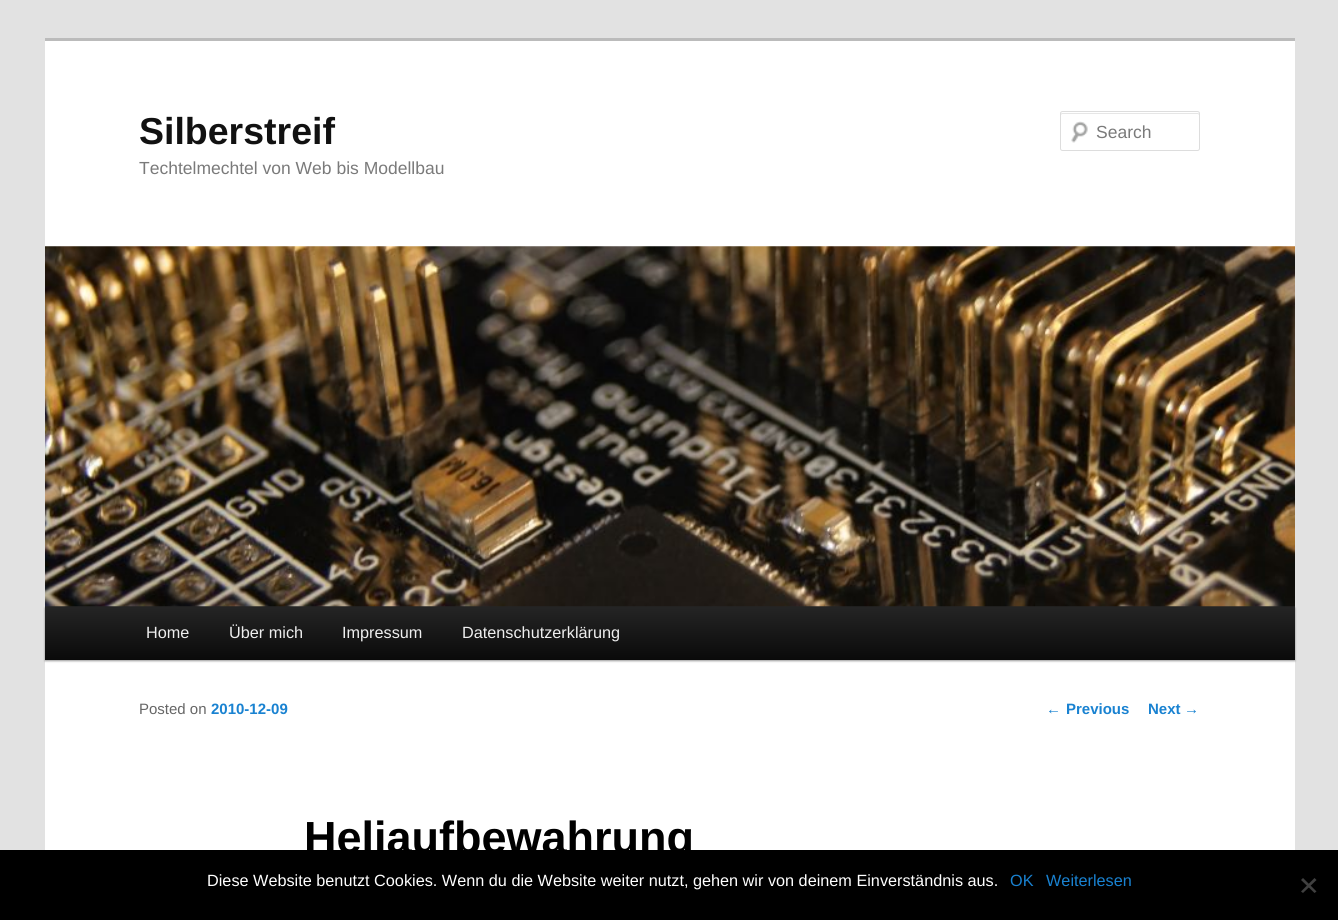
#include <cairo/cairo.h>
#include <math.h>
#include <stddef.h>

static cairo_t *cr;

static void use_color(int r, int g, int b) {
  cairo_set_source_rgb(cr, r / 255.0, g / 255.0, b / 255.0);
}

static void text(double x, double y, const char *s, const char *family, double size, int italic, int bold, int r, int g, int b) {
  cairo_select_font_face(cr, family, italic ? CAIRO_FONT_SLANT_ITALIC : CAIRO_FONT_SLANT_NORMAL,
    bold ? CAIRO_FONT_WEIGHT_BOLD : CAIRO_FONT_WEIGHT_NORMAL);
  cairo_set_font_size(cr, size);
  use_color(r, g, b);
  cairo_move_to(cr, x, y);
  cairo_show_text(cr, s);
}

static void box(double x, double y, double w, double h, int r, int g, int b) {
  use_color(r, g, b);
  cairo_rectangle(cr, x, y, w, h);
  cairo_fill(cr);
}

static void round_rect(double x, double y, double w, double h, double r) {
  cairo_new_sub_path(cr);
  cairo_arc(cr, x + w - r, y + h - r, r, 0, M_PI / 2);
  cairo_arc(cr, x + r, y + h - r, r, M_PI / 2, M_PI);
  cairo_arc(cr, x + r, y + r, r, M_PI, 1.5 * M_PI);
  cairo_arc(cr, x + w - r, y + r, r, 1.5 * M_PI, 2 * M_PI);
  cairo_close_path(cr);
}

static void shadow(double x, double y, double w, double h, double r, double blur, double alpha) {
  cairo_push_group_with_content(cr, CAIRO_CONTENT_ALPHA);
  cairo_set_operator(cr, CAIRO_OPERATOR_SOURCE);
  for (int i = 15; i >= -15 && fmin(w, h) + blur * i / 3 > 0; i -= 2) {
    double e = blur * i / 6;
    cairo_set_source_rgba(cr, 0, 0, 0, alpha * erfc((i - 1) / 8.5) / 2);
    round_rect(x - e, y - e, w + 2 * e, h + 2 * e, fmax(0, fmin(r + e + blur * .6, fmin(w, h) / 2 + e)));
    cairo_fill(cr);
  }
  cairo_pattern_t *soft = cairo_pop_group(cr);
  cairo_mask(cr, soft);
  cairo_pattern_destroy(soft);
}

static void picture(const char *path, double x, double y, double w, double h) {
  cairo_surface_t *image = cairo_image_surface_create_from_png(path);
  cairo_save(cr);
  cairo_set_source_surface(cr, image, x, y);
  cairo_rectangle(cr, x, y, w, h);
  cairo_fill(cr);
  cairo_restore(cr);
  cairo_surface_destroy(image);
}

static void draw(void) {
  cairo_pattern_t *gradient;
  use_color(226, 226, 226);
  cairo_paint(cr);
  box(45, 41, 1250, 809, 255, 255, 255);
  box(45, 38, 1250, 3, 187, 187, 187);
  picture("img_01.png", 1071, 121, 17, 22);
  use_color(230, 230, 230);
  cairo_new_path(cr);
  cairo_move_to(cr, 1062, 114);
  cairo_line_to(cr, 1198, 114);
  cairo_line_to(cr, 1199, 115);
  cairo_curve_to(cr, 1199, 114, 1199, 113, 1198, 113);
  cairo_line_to(cr, 1062, 113);
  cairo_curve_to(cr, 1061, 113, 1061, 114, 1061, 115);
  cairo_close_path(cr);
  cairo_fill(cr);
  round_rect(1060.5, 111.5, 139, 39, 2);
  use_color(221, 221, 221);
  cairo_set_line_width(cr, 1);
  cairo_stroke(cr);
  use_color(0, 0, 0);
  shadow(45, 608, 1250, 53, 0, 1, 0.4);
  gradient = cairo_pattern_create_linear(670, 606, 670, 660);
  cairo_pattern_add_color_stop_rgba(gradient, 0, 0.145, 0.145, 0.145, 1);
  cairo_pattern_add_color_stop_rgba(gradient, 1, 0.039, 0.039, 0.039, 1);
  cairo_set_source(cr, gradient);
  cairo_pattern_destroy(gradient);
  cairo_rectangle(cr, 45, 606, 1250, 54);
  cairo_fill(cr);
  picture("img_02.png", 45, 246, 1250, 361);
  box(0, 850, 1338, 70, 0, 0, 0);
  use_color(64, 64, 64);
  cairo_new_path(cr);
  cairo_move_to(cr, 1314.5, 878);
  cairo_line_to(cr, 1316.5, 880);
  cairo_line_to(cr, 1303, 893);
  cairo_line_to(cr, 1301, 891.5);
  cairo_close_path(cr);
  cairo_fill(cr);
  cairo_new_path(cr);
  cairo_move_to(cr, 1301, 880);
  cairo_line_to(cr, 1303, 878);
  cairo_line_to(cr, 1316.5, 891.5);
  cairo_line_to(cr, 1314.5, 893);
  cairo_close_path(cr);
  cairo_fill(cr);
  text(139, 144, "Silberstreif", "Liberation Sans", 37.5, 0, 1, 17, 17, 17);
  text(139, 174, "Techtelmechtel von Web bis Modellbau", "Liberation Sans", 17.5, 0, 0, 122, 122, 122);
  text(1096, 138, "Search", "Liberation Sans", 17.5, 0, 0, 122, 122, 122);
  text(146, 638, "Home", "Liberation Sans", 16.25, 0, 0, 238, 238, 238);
  text(229, 638, "Über mich", "Liberation Sans", 16.25, 0, 0, 238, 238, 238);
  text(342, 638, "Impressum", "Liberation Sans", 16.25, 0, 0, 238, 238, 238);
  text(462, 638, "Datenschutzerklärung", "Liberation Sans", 16.25, 0, 0, 238, 238, 238);
  text(139, 714, "Posted on", "Liberation Sans", 15, 0, 0, 102, 102, 102);
  text(211, 714, "2010-12-09", "Liberation Sans", 15, 0, 1, 25, 130, 209);
  text(304, 853, "Heliaufbewahrung", "Liberation Sans", 45, 0, 1, 0, 0, 0);
  text(1046, 714, "←", "Liberation Sans", 15, 0, 0, 25, 130, 209);
  text(1066, 714, "Previous", "Liberation Sans", 15, 0, 1, 25, 130, 209);
  text(1148, 714, "Next", "Liberation Sans", 15, 0, 1, 25, 130, 209);
  text(1184, 714, "→", "Liberation Sans", 15, 0, 0, 25, 130, 209);
  text(207, 886, "Diese Website benutzt Cookies. Wenn du die Website weiter nutzt, gehen wir von deinem Einverständnis aus.", "Liberation Sans", 16.25, 0, 0, 255, 255, 255);
  text(1010, 886, "OK", "Liberation Sans", 16.25, 0, 0, 25, 130, 209);
  text(1046, 886, "Weiterlesen", "Liberation Sans", 16.25, 0, 0, 25, 130, 209);
}

int main(void) {
  cairo_surface_t *surface = cairo_image_surface_create(CAIRO_FORMAT_RGB24, 1338, 920);
  cr = cairo_create(surface);
  cairo_font_options_t *options = cairo_font_options_create();
  cairo_font_options_set_hint_metrics(options, CAIRO_HINT_METRICS_OFF);
  cairo_font_options_set_hint_style(options, CAIRO_HINT_STYLE_NONE);
  cairo_set_font_options(cr, options);
  cairo_set_miter_limit(cr, 4);
  draw();
  cairo_surface_write_to_png(surface, "out.png");
  cairo_font_options_destroy(options);
  cairo_destroy(cr);
  cairo_surface_destroy(surface);
  return 0;
}
